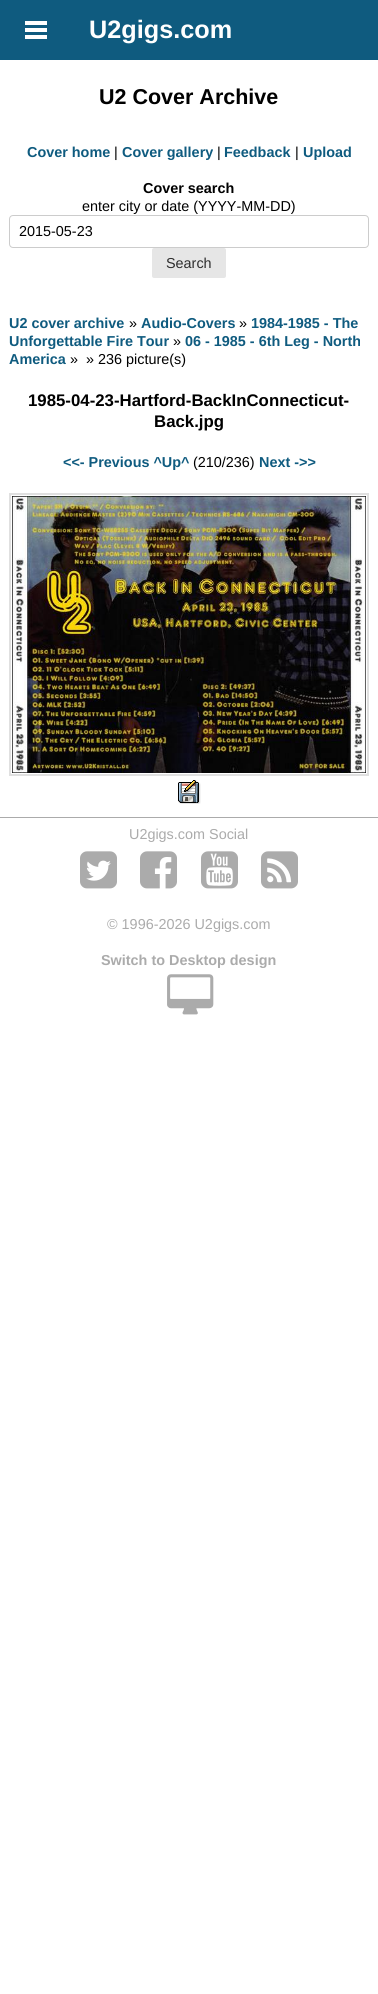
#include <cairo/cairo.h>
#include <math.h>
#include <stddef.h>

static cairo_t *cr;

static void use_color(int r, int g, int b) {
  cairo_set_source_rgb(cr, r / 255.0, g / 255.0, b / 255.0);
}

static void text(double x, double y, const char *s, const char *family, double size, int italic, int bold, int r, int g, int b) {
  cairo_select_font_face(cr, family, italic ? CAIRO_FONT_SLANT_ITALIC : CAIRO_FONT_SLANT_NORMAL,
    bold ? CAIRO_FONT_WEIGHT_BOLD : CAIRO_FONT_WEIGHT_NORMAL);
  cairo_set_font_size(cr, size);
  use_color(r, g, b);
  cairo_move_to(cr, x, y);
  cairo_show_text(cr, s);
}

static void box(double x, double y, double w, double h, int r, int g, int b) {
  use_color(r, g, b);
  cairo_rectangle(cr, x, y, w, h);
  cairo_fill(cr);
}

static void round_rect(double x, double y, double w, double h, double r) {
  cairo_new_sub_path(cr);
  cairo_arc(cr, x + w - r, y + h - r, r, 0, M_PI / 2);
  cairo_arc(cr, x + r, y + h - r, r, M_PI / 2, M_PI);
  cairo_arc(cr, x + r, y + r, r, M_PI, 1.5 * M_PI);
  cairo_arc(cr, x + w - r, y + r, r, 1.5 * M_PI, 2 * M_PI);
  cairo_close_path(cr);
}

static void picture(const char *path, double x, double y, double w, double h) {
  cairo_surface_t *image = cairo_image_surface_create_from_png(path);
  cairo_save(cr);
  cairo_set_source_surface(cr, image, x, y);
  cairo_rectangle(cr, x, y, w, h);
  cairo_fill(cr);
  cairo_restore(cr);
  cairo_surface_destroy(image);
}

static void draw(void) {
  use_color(255, 255, 255);
  cairo_paint(cr);
  box(0, 0, 378, 60, 15, 91, 127);
  picture("img_01.png", 25, 21, 22, 18);
  round_rect(9.5, 215.5, 359, 32, 3.5);
  use_color(204, 204, 204);
  cairo_set_line_width(cr, 1);
  cairo_stroke(cr);
  use_color(230, 230, 230);
  round_rect(152, 248, 74, 30, 2);
  cairo_fill(cr);
  cairo_rectangle(cr, 10, 494, 358, 281);
  use_color(224, 224, 224);
  cairo_set_line_width(cr, 2);
  cairo_stroke(cr);
  picture("img_02.png", 12, 496, 354, 277);
  picture("img_03.png", 178, 780, 23, 24);
  box(0, 817, 378, 1, 171, 171, 171);
  picture("img_04.png", 80, 851, 37, 38);
  picture("img_05.png", 140, 851, 37, 38);
  picture("img_06.png", 201, 851, 37, 38);
  picture("img_07.png", 261, 851, 37, 38);
  picture("img_08.png", 167, 974, 47, 41);
  text(89, 38, "U2gigs.com", "Liberation Sans", 25.25, 0, 1, 255, 255, 255);
  text(99, 104, "U2 Cover Archive", "Liberation Sans", 21.5, 0, 1, 0, 0, 0);
  text(27, 157, "Cover home", "Liberation Sans", 14.4, 0, 1, 15, 91, 127);
  text(114, 157, "|", "Liberation Sans", 14.4, 0, 0, 0, 0, 0);
  text(122, 157, "Cover gallery", "Liberation Sans", 14.4, 0, 1, 15, 91, 127);
  text(217, 157, "|", "Liberation Sans", 14.4, 0, 0, 0, 0, 0);
  text(224, 157, "Feedback", "Liberation Sans", 14.4, 0, 1, 15, 91, 127);
  text(295, 157, "|", "Liberation Sans", 14.4, 0, 0, 0, 0, 0);
  text(303, 157, "Upload", "Liberation Sans", 14.4, 0, 1, 15, 91, 127);
  text(143, 193, "Cover search", "Liberation Sans", 14.4, 0, 1, 0, 0, 0);
  text(82, 211, "enter city or date (YYYY-MM-DD)", "Liberation Sans", 14.4, 0, 0, 0, 0, 0);
  text(19, 236, "2015-05-23", "Liberation Sans", 14.4, 0, 0, 0, 0, 0);
  text(166, 268, "Search", "Liberation Sans", 14.4, 0, 0, 46, 46, 46);
  text(9, 328, "U2 cover archive", "Liberation Sans", 14.4, 0, 1, 15, 91, 127);
  text(129, 328, "»", "Liberation Sans", 14.4, 0, 0, 0, 0, 0);
  text(141, 328, "Audio-Covers", "Liberation Sans", 14.4, 0, 1, 15, 91, 127);
  text(239, 328, "»", "Liberation Sans", 14.4, 0, 0, 0, 0, 0);
  text(251, 328, "1984-1985 - The", "Liberation Sans", 14.4, 0, 1, 15, 91, 127);
  text(9, 346, "Unforgettable Fire Tour", "Liberation Sans", 14.4, 0, 1, 15, 91, 127);
  text(173, 346, "»", "Liberation Sans", 14.4, 0, 0, 0, 0, 0);
  text(185, 346, "06 - 1985 - 6th Leg - North", "Liberation Sans", 14.4, 0, 1, 15, 91, 127);
  text(9, 364, "America", "Liberation Sans", 14.4, 0, 1, 15, 91, 127);
  text(70, 364, "»  » 236 picture(s)", "Liberation Sans", 14.4, 0, 0, 0, 0, 0);
  text(28, 406, "1985-04-23-Hartford-BackInConnecticut-", "Liberation Sans", 16.8, 0, 1, 0, 0, 0);
  text(154, 427, "Back.jpg", "Liberation Sans", 16.8, 0, 1, 0, 0, 0);
  text(63, 467, "<<- Previous ^Up^", "Liberation Sans", 14.4, 0, 1, 15, 91, 127);
  text(193, 467, "(210/236)", "Liberation Sans", 14.4, 0, 0, 0, 0, 0);
  text(259, 467, "Next ->>", "Liberation Sans", 14.4, 0, 1, 15, 91, 127);
  text(129, 839, "U2gigs.com Social", "Liberation Sans", 14.4, 0, 0, 171, 171, 171);
  text(107, 929, "© 1996-2026 U2gigs.com", "Liberation Sans", 14.4, 0, 0, 171, 171, 171);
  text(101, 965, "Switch to Desktop design", "Liberation Sans", 14.4, 0, 1, 171, 171, 171);
}

int main(void) {
  cairo_surface_t *surface = cairo_image_surface_create(CAIRO_FORMAT_RGB24, 378, 1994);
  cr = cairo_create(surface);
  cairo_font_options_t *options = cairo_font_options_create();
  cairo_font_options_set_hint_metrics(options, CAIRO_HINT_METRICS_OFF);
  cairo_font_options_set_hint_style(options, CAIRO_HINT_STYLE_NONE);
  cairo_set_font_options(cr, options);
  cairo_set_miter_limit(cr, 4);
  draw();
  cairo_surface_write_to_png(surface, "out.png");
  cairo_font_options_destroy(options);
  cairo_destroy(cr);
  cairo_surface_destroy(surface);
  return 0;
}
